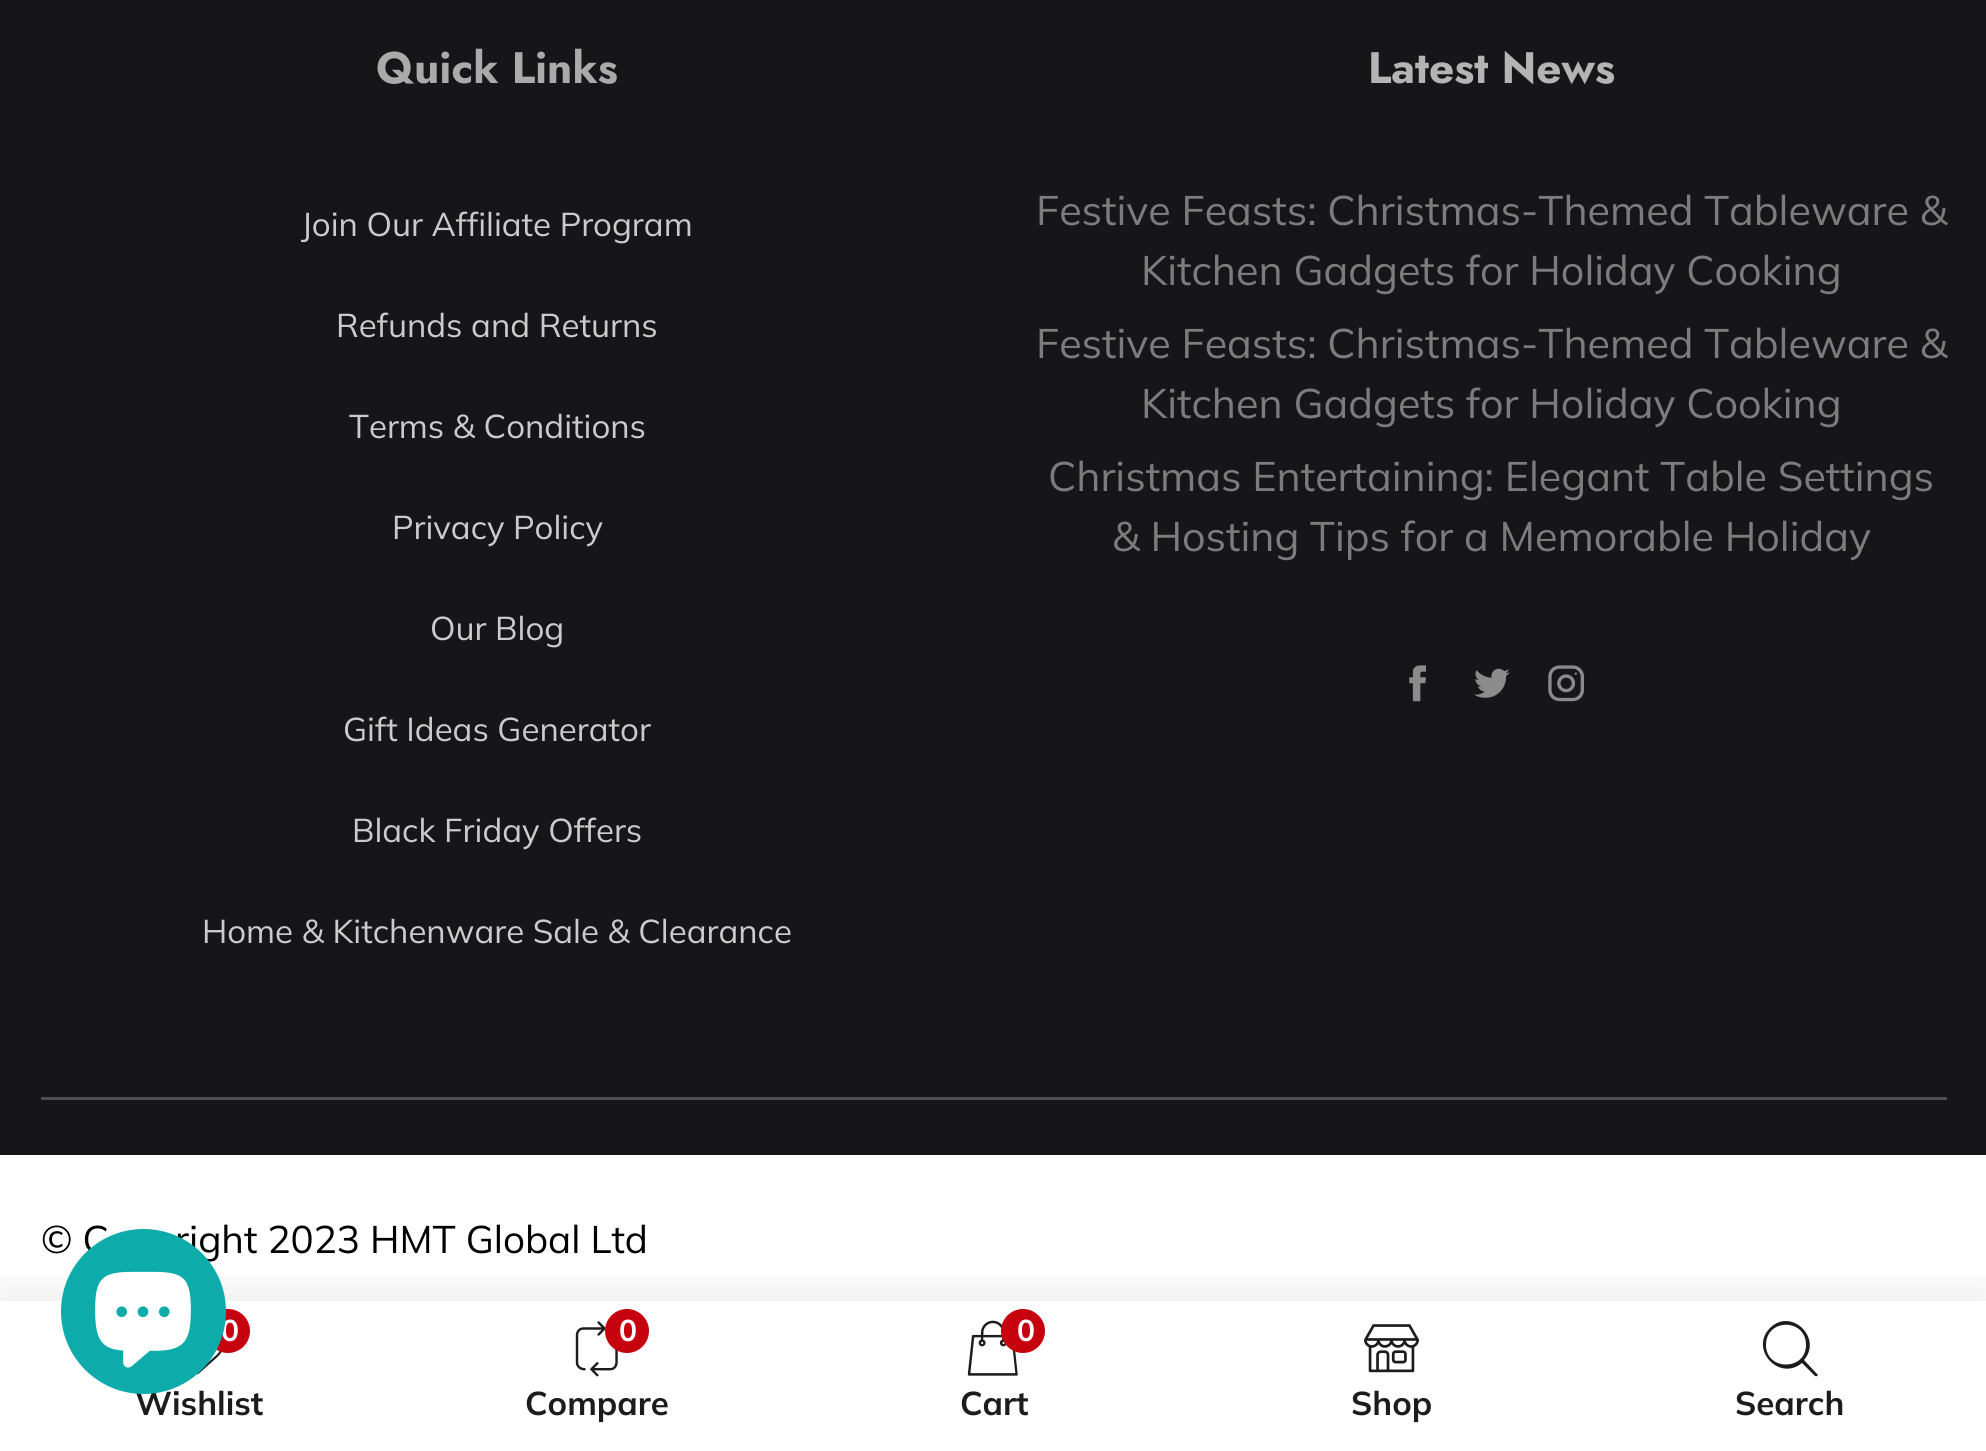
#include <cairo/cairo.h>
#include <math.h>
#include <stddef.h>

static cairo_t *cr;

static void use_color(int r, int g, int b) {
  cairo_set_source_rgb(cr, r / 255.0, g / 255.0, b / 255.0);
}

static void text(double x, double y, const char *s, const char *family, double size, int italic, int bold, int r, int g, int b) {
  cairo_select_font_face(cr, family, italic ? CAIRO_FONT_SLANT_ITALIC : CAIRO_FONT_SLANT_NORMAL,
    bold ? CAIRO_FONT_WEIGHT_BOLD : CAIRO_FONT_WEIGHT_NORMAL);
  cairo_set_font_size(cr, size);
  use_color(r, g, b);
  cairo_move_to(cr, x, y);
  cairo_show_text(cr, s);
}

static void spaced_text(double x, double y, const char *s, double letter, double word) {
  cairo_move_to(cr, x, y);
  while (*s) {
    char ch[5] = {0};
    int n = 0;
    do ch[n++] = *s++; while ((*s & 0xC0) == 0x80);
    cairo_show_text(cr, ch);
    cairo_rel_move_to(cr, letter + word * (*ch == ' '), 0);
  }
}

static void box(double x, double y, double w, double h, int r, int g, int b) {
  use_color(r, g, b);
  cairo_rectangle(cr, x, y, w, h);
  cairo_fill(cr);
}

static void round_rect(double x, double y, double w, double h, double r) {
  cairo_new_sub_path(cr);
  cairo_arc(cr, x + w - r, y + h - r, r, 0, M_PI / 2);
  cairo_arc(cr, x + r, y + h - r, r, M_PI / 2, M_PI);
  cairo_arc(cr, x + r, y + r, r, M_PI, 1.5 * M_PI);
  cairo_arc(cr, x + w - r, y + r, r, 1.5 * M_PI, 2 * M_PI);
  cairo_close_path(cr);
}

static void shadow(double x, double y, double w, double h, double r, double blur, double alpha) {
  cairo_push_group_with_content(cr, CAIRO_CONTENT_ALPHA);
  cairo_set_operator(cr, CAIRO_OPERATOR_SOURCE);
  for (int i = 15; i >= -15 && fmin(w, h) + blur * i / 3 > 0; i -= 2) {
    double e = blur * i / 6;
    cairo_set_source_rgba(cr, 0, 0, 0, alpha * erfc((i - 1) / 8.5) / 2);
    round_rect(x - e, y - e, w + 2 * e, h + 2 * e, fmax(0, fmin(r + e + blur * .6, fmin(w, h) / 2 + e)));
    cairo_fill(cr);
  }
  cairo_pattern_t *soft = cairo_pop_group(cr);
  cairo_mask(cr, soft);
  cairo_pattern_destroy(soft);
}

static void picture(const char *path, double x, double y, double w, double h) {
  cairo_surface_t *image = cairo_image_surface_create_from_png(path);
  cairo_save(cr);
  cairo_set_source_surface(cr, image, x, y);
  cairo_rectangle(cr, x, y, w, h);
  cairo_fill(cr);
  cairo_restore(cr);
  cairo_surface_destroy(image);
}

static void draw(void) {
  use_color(255, 255, 255);
  cairo_paint(cr);
  box(0, 0, 1986, 1155, 22, 22, 25);
  picture("img_01.png", 1409, 665, 17, 37);
  picture("img_02.png", 1474, 668, 36, 30);
  picture("img_03.png", 1548, 665, 37, 37);
  box(41, 1097, 1906, 3, 78, 78, 78);
  cairo_save(cr);
  cairo_rectangle(cr, 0, 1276, 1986, 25);
  cairo_clip(cr);
  use_color(0, 0, 0);
  shadow(0, 1298, 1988, 151, 0, 26, 0.1);
  cairo_restore(cr);
  picture("img_05.png", 197, 1351, 25, 24);
  use_color(199, 2, 15);
  cairo_arc(cr, 228, 1331, 22, 0, 2 * M_PI);
  cairo_fill(cr);
  picture("img_06.png", 575, 1321, 43, 56);
  cairo_arc(cr, 627, 1331, 22, 0, 2 * M_PI);
  cairo_fill(cr);
  picture("img_07.png", 967, 1320, 51, 56);
  cairo_arc(cr, 1023, 1331, 22, 0, 2 * M_PI);
  cairo_fill(cr);
  picture("img_08.png", 1364, 1324, 55, 49);
  use_color(28, 28, 28);
  cairo_new_path(cr);
  cairo_move_to(cr, 1817, 1374);
  cairo_line_to(cr, 1804, 1360);
  cairo_curve_to(cr, 1823, 1338, 1791, 1307, 1770, 1328);
  cairo_curve_to(cr, 1749, 1349, 1779, 1382, 1802, 1363);
  cairo_line_to(cr, 1815, 1376);
  cairo_curve_to(cr, 1817, 1377, 1819, 1375, 1817, 1374);
  cairo_close_path(cr);
  cairo_move_to(cr, 1766, 1345);
  cairo_curve_to(cr, 1766, 1318, 1806, 1318, 1806, 1345);
  cairo_curve_to(cr, 1806, 1371, 1766, 1371, 1766, 1345);
  cairo_close_path(cr);
  cairo_fill(cr);
  text(376, 83, "Quick Links", "Jost", 44, 0, 1, 170, 170, 170);
  text(301, 236, "Join Our Affiliate Program", "Muli", 33, 0, 0, 204, 203, 203);
  text(336, 337, "Refunds and Returns", "Muli", 33, 0, 0, 204, 203, 203);
  text(349, 438, "Terms & Conditions", "Muli", 33, 0, 0, 204, 203, 203);
  text(392, 539, "Privacy Policy", "Muli", 33, 0, 0, 204, 203, 203);
  text(430, 640, "Our Blog", "Muli", 33, 0, 0, 204, 203, 203);
  text(343, 741, "Gift Ideas Generator", "Muli", 33, 0, 0, 204, 203, 203);
  text(352, 842, "Black Friday Offers", "Muli", 33, 0, 0, 204, 203, 203);
  text(202, 943, "Home & Kitchenware Sale & Clearance", "Muli", 33, 0, 0, 204, 203, 203);
  text(1368, 83, "Latest News", "Jost", 44, 0, 1, 180, 180, 180);
  text(1036, 225, "Festive Feasts: Christmas-Themed Tableware &", "Muli", 41.25, 0, 0, 124, 124, 124);
  text(1141, 285, "Kitchen Gadgets for Holiday Cooking", "Muli", 41.25, 0, 0, 124, 124, 124);
  text(1036, 358, "Festive Feasts: Christmas-Themed Tableware &", "Muli", 41.25, 0, 0, 124, 124, 124);
  text(1141, 418, "Kitchen Gadgets for Holiday Cooking", "Muli", 41.25, 0, 0, 124, 124, 124);
  text(1048, 491, "Christmas Entertaining: Elegant Table Settings", "Muli", 41.25, 0, 0, 124, 124, 124);
  text(1112, 551, "& Hosting Tips for a Memorable Holiday", "Muli", 41.25, 0, 0, 124, 124, 124);
  text(41, 1253, "© C", "Muli", 38.5, 0, 0, 0, 0, 0);
  text(175, 1253, "right 2023 HMT Global Ltd", "Muli", 38.5, 0, 0, 0, 0, 0);
  cairo_select_font_face(cr, "Muli", CAIRO_FONT_SLANT_NORMAL, CAIRO_FONT_WEIGHT_BOLD);
  cairo_set_font_size(cr, 30);
  use_color(255, 255, 255);
  spaced_text(221, 1341, "0", -3, 0);
  text(135, 1415, "Wishlist", "Muli", 33, 0, 1, 28, 28, 28);
  use_color(13, 171, 170);
  cairo_new_path(cr);
  cairo_arc(cr, 143.5, 1311.5, 82.5, 0, 2 * M_PI);
  cairo_fill(cr);
  picture("img_04.png", 95, 1271, 96, 97);
  cairo_set_font_size(cr, 30);
  use_color(255, 255, 255);
  spaced_text(619, 1341, "0", -3, 0);
  text(525, 1415, "Compare", "Muli", 33, 0, 1, 28, 28, 28);
  cairo_set_font_size(cr, 30);
  use_color(255, 255, 255);
  spaced_text(1017, 1341, "0", -3, 0);
  text(960, 1415, "Cart", "Muli", 33, 0, 1, 28, 28, 28);
  text(1351, 1415, "Shop", "Muli", 33, 0, 1, 28, 28, 28);
  text(1735, 1415, "Search", "Muli", 33, 0, 1, 28, 28, 28);
}

int main(void) {
  cairo_surface_t *surface = cairo_image_surface_create(CAIRO_FORMAT_RGB24, 1986, 1451);
  cr = cairo_create(surface);
  cairo_font_options_t *options = cairo_font_options_create();
  cairo_font_options_set_hint_metrics(options, CAIRO_HINT_METRICS_OFF);
  cairo_font_options_set_hint_style(options, CAIRO_HINT_STYLE_NONE);
  cairo_set_font_options(cr, options);
  cairo_set_miter_limit(cr, 4);
  draw();
  cairo_surface_write_to_png(surface, "out.png");
  cairo_font_options_destroy(options);
  cairo_destroy(cr);
  cairo_surface_destroy(surface);
  return 0;
}
